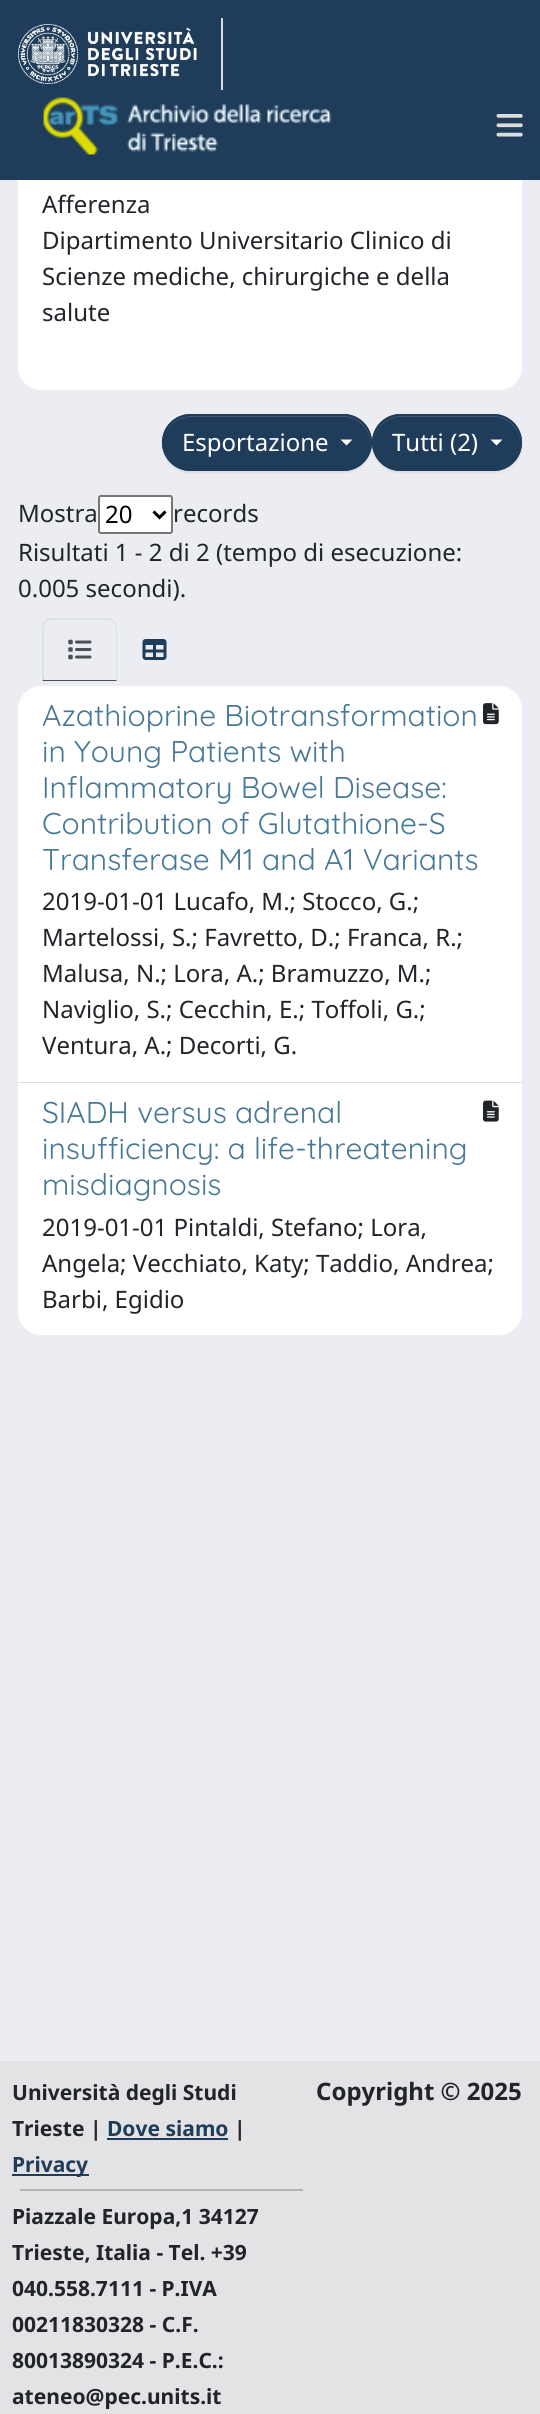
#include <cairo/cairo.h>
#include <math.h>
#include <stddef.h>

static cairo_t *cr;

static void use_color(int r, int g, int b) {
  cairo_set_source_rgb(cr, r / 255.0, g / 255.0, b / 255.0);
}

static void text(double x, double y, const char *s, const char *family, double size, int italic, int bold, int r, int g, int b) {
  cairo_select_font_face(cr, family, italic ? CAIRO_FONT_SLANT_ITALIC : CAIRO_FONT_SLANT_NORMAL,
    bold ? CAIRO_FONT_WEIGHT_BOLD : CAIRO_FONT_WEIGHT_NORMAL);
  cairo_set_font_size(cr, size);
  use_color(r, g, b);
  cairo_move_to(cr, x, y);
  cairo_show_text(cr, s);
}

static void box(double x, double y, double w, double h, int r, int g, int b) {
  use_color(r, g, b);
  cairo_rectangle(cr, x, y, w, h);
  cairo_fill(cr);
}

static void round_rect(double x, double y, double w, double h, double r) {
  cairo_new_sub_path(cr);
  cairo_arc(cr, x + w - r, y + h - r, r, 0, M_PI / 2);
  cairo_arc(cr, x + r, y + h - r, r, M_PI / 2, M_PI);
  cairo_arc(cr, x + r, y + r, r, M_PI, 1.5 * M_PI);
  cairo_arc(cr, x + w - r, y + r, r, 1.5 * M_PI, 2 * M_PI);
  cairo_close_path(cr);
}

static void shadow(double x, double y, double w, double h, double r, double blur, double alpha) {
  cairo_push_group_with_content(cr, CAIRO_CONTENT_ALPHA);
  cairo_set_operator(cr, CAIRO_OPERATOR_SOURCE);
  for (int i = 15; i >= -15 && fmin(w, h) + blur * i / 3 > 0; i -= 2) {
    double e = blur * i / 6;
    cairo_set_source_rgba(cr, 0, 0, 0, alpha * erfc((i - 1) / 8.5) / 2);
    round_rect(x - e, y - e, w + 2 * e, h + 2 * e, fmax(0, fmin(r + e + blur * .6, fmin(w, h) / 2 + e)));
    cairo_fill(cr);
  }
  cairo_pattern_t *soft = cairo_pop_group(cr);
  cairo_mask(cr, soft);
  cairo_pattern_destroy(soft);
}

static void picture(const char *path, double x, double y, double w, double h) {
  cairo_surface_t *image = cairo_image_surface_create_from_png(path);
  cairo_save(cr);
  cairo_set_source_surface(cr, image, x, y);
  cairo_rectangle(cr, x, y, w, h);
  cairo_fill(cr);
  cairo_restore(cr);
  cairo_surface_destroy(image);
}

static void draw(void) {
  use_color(236, 237, 242);
  cairo_paint(cr);
  use_color(255, 255, 255);
  round_rect(18, 30, 504, 360, 23);
  cairo_fill(cr);
  box(0, 0, 540, 180, 31, 61, 90);
  box(221, 18, 2, 72, 221, 221, 221);
  picture("img_01.png", 18, 24, 179, 60);
  picture("img_02.png", 43, 97, 289, 58);
  picture("img_03.png", 496, 114, 27, 23);
  use_color(0, 0, 0);
  shadow(372, 416, 150, 57, 28.5, 1, 0.07);
  use_color(31, 61, 90);
  round_rect(372, 414, 150, 57, 28.5);
  cairo_fill(cr);
  use_color(65, 90, 115);
  cairo_new_path(cr);
  cairo_move_to(cr, 400, 417);
  cairo_line_to(cr, 494, 417);
  cairo_curve_to(cr, 508, 417, 520, 429, 520, 444);
  cairo_curve_to(cr, 520, 451, 518, 456, 514, 461);
  cairo_curve_to(cr, 518, 456, 521, 450, 521, 443);
  cairo_curve_to(cr, 521, 428, 509, 416, 494, 416);
  cairo_line_to(cr, 401, 416);
  cairo_curve_to(cr, 386, 416, 374, 428, 374, 443);
  cairo_curve_to(cr, 374, 429, 386, 417, 400, 417);
  cairo_close_path(cr);
  cairo_fill(cr);
  round_rect(373, 415, 148, 55, 27.5);
  use_color(31, 61, 90);
  cairo_stroke(cr);
  use_color(0, 0, 0);
  shadow(162, 416, 210, 57, 28.5, 1, 0.07);
  use_color(31, 61, 90);
  round_rect(162, 414, 210, 57, 28.5);
  cairo_fill(cr);
  use_color(65, 90, 115);
  cairo_new_path(cr);
  cairo_move_to(cr, 190, 417);
  cairo_line_to(cr, 344, 417);
  cairo_curve_to(cr, 358, 417, 370, 429, 370, 444);
  cairo_curve_to(cr, 370, 451, 368, 456, 364, 461);
  cairo_curve_to(cr, 368, 456, 371, 450, 371, 443);
  cairo_curve_to(cr, 371, 428, 359, 416, 344, 416);
  cairo_line_to(cr, 191, 416);
  cairo_curve_to(cr, 176, 416, 164, 428, 164, 443);
  cairo_curve_to(cr, 164, 429, 176, 417, 190, 417);
  cairo_close_path(cr);
  cairo_fill(cr);
  round_rect(163, 415, 208, 55, 27.5);
  use_color(31, 61, 90);
  cairo_stroke(cr);
  use_color(255, 255, 255);
  cairo_new_path(cr);
  cairo_move_to(cr, 340.5, 439.5);
  cairo_line_to(cr, 352.5, 439.5);
  cairo_line_to(cr, 346.5, 445.5);
  cairo_close_path(cr);
  cairo_fill(cr);
  cairo_new_path(cr);
  cairo_move_to(cr, 490.5, 439.5);
  cairo_line_to(cr, 502.5, 439.5);
  cairo_line_to(cr, 496.5, 445.5);
  cairo_close_path(cr);
  cairo_fill(cr);
  round_rect(99, 496, 73, 37, 2);
  cairo_fill_preserve(cr);
  use_color(118, 118, 118);
  cairo_stroke(cr);
  cairo_new_path(cr);
  cairo_move_to(cr, 153.5, 511.5);
  cairo_line_to(cr, 159.5, 517.5);
  cairo_line_to(cr, 165.5, 511.5);
  use_color(0, 0, 0);
  cairo_set_line_width(cr, 3);
  cairo_stroke(cr);
  use_color(222, 226, 230);
  cairo_new_path(cr);
  cairo_move_to(cr, 51, 618);
  cairo_curve_to(cr, 48, 618, 46, 619, 45, 621);
  cairo_line_to(cr, 46, 622);
  cairo_curve_to(cr, 47, 621, 49, 620, 51, 620);
  cairo_line_to(cr, 108, 620);
  cairo_curve_to(cr, 110, 620, 112, 621, 113, 622);
  cairo_line_to(cr, 114, 621);
  cairo_curve_to(cr, 113, 619, 110, 618, 108, 618);
  cairo_close_path(cr);
  cairo_fill(cr);
  cairo_new_path(cr);
  cairo_move_to(cr, 117, 681);
  cairo_line_to(cr, 117, 627);
  cairo_curve_to(cr, 117, 624, 116, 622, 114, 621);
  cairo_line_to(cr, 113, 622);
  cairo_curve_to(cr, 115, 623, 116, 625, 116, 627);
  cairo_line_to(cr, 116, 680);
  cairo_close_path(cr);
  cairo_fill(cr);
  use_color(73, 80, 87);
  cairo_new_path(cr);
  cairo_move_to(cr, 117, 681);
  cairo_line_to(cr, 116, 680);
  cairo_line_to(cr, 44, 680);
  cairo_line_to(cr, 44, 679);
  cairo_line_to(cr, 42, 681);
  cairo_close_path(cr);
  cairo_fill(cr);
  use_color(222, 226, 230);
  cairo_new_path(cr);
  cairo_move_to(cr, 42, 681);
  cairo_line_to(cr, 44, 679);
  cairo_line_to(cr, 44, 627);
  cairo_curve_to(cr, 44, 625, 45, 623, 46, 622);
  cairo_line_to(cr, 45, 621);
  cairo_curve_to(cr, 43, 622, 42, 624, 42, 627);
  cairo_close_path(cr);
  cairo_fill(cr);
  picture("img_04.png", 68, 639, 24, 21);
  picture("img_05.png", 142, 639, 25, 21);
  use_color(255, 255, 255);
  cairo_new_path(cr);
  cairo_move_to(cr, 41, 686);
  cairo_line_to(cr, 499, 686);
  cairo_curve_to(cr, 511.5, 686, 522, 696.5, 522, 709);
  cairo_line_to(cr, 522, 1083);
  cairo_line_to(cr, 18, 1083);
  cairo_line_to(cr, 18, 709);
  cairo_curve_to(cr, 18, 696.5, 28.5, 686, 41, 686);
  cairo_close_path(cr);
  cairo_fill(cr);
  box(18, 1082, 504, 1, 223, 223, 223);
  picture("img_06.png", 483, 703, 16, 22);
  use_color(255, 255, 255);
  cairo_new_path(cr);
  cairo_move_to(cr, 18, 1083);
  cairo_line_to(cr, 522, 1083);
  cairo_line_to(cr, 522, 1312);
  cairo_curve_to(cr, 522, 1324.5, 511.5, 1335, 499, 1335);
  cairo_line_to(cr, 41, 1335);
  cairo_curve_to(cr, 28.5, 1335, 18, 1324.5, 18, 1312);
  cairo_close_path(cr);
  cairo_fill(cr);
  picture("img_07.png", 483, 1100, 16, 22);
  box(0, 2061, 540, 353, 227, 227, 229);
  box(107, 2138, 121, 2, 31, 61, 90);
  box(12, 2174, 77, 2, 31, 61, 90);
  box(20, 2189, 283, 2, 179, 180, 182);
  text(42, 213, "Afferenza", "Noto Sans", 24, 0, 0, 33, 37, 41);
  text(42, 249, "Dipartimento Universitario Clinico di", "Noto Sans", 24, 0, 0, 33, 37, 41);
  text(42, 285, "Scienze mediche, chirurgiche e della", "Noto Sans", 24, 0, 0, 33, 37, 41);
  text(42, 321, "salute", "Noto Sans", 24, 0, 0, 33, 37, 41);
  text(182, 451, "Esportazione", "Noto Sans", 24, 0, 0, 255, 255, 255);
  text(392, 451, "Tutti (2)", "Noto Sans", 24, 0, 0, 255, 255, 255);
  text(18, 522, "Mostra", "Noto Sans", 24, 0, 0, 33, 37, 41);
  text(105, 523, "20", "Noto Sans", 24, 0, 0, 0, 0, 0);
  text(173, 522, "records", "Noto Sans", 24, 0, 0, 33, 37, 41);
  text(18, 561, "Risultati 1 - 2 di 2 (tempo di esecuzione:", "Noto Sans", 24, 0, 0, 33, 37, 41);
  text(18, 597, "0.005 secondi).", "Noto Sans", 24, 0, 0, 33, 37, 41);
  text(42, 726, "Azathioprine Biotransformation", "Quicksand Light", 30, 0, 0, 72, 121, 148);
  text(42, 762, "in Young Patients with", "Quicksand Light", 30, 0, 0, 72, 121, 148);
  text(42, 798, "Inflammatory Bowel Disease:", "Quicksand Light", 30, 0, 0, 72, 121, 148);
  text(42, 834, "Contribution of Glutathione-S", "Quicksand Light", 30, 0, 0, 72, 121, 148);
  text(42, 870, "Transferase M1 and A1 Variants", "Quicksand Light", 30, 0, 0, 72, 121, 148);
  text(42, 910, "2019-01-01 Lucafo, M.; Stocco, G.;", "Noto Sans", 24, 0, 0, 33, 37, 41);
  text(42, 946, "Martelossi, S.; Favretto, D.; Franca, R.;", "Noto Sans", 24, 0, 0, 33, 37, 41);
  text(42, 982, "Malusa, N.; Lora, A.; Bramuzzo, M.;", "Noto Sans", 24, 0, 0, 33, 37, 41);
  text(42, 1018, "Naviglio, S.; Cecchin, E.; Toffoli, G.;", "Noto Sans", 24, 0, 0, 33, 37, 41);
  text(42, 1054, "Ventura, A.; Decorti, G.", "Noto Sans", 24, 0, 0, 33, 37, 41);
  text(42, 1123, "SIADH versus adrenal", "Quicksand Light", 30, 0, 0, 72, 121, 148);
  text(42, 1159, "insufficiency: a life-threatening", "Quicksand Light", 30, 0, 0, 72, 121, 148);
  text(42, 1195, "misdiagnosis", "Quicksand Light", 30, 0, 0, 72, 121, 148);
  text(42, 1236, "2019-01-01 Pintaldi, Stefano; Lora,", "Noto Sans", 24, 0, 0, 33, 37, 41);
  text(42, 1272, "Angela; Vecchiato, Katy; Taddio, Andrea;", "Noto Sans", 24, 0, 0, 33, 37, 41);
  text(42, 1308, "Barbi, Egidio", "Noto Sans", 24, 0, 0, 33, 37, 41);
  text(12, 2100, "Università degli Studi", "Noto Sans", 21, 0, 1, 33, 37, 41);
  text(12, 2136, "Trieste |", "Noto Sans", 21, 0, 1, 33, 37, 41);
  text(107, 2136, "Dove siamo", "Noto Sans", 21, 0, 1, 31, 61, 90);
  text(234, 2136, "|", "Noto Sans", 21, 0, 1, 33, 37, 41);
  text(12, 2172, "Privacy", "Noto Sans", 21, 0, 1, 31, 61, 90);
  text(12, 2224, "Piazzale Europa,1 34127", "Noto Sans", 21, 0, 1, 33, 37, 41);
  text(12, 2260, "Trieste, Italia - Tel. +39", "Noto Sans", 21, 0, 1, 33, 37, 41);
  text(12, 2296, "040.558.7111 - P.IVA", "Noto Sans", 21, 0, 1, 33, 37, 41);
  text(12, 2332, "00211830328 - C.F.", "Noto Sans", 21, 0, 1, 33, 37, 41);
  text(12, 2368, "80013890324 - P.E.C.:", "Noto Sans", 21, 0, 1, 33, 37, 41);
  text(12, 2404, "ateneo@pec.units.it", "Noto Sans", 21, 0, 1, 33, 37, 41);
  text(316, 2100, "Copyright © 2025", "Noto Sans", 24, 0, 1, 33, 37, 41);
}

int main(void) {
  cairo_surface_t *surface = cairo_image_surface_create(CAIRO_FORMAT_RGB24, 540, 2414);
  cr = cairo_create(surface);
  cairo_font_options_t *options = cairo_font_options_create();
  cairo_font_options_set_hint_metrics(options, CAIRO_HINT_METRICS_OFF);
  cairo_font_options_set_hint_style(options, CAIRO_HINT_STYLE_NONE);
  cairo_set_font_options(cr, options);
  cairo_set_miter_limit(cr, 4);
  draw();
  cairo_surface_write_to_png(surface, "out.png");
  cairo_font_options_destroy(options);
  cairo_destroy(cr);
  cairo_surface_destroy(surface);
  return 0;
}
